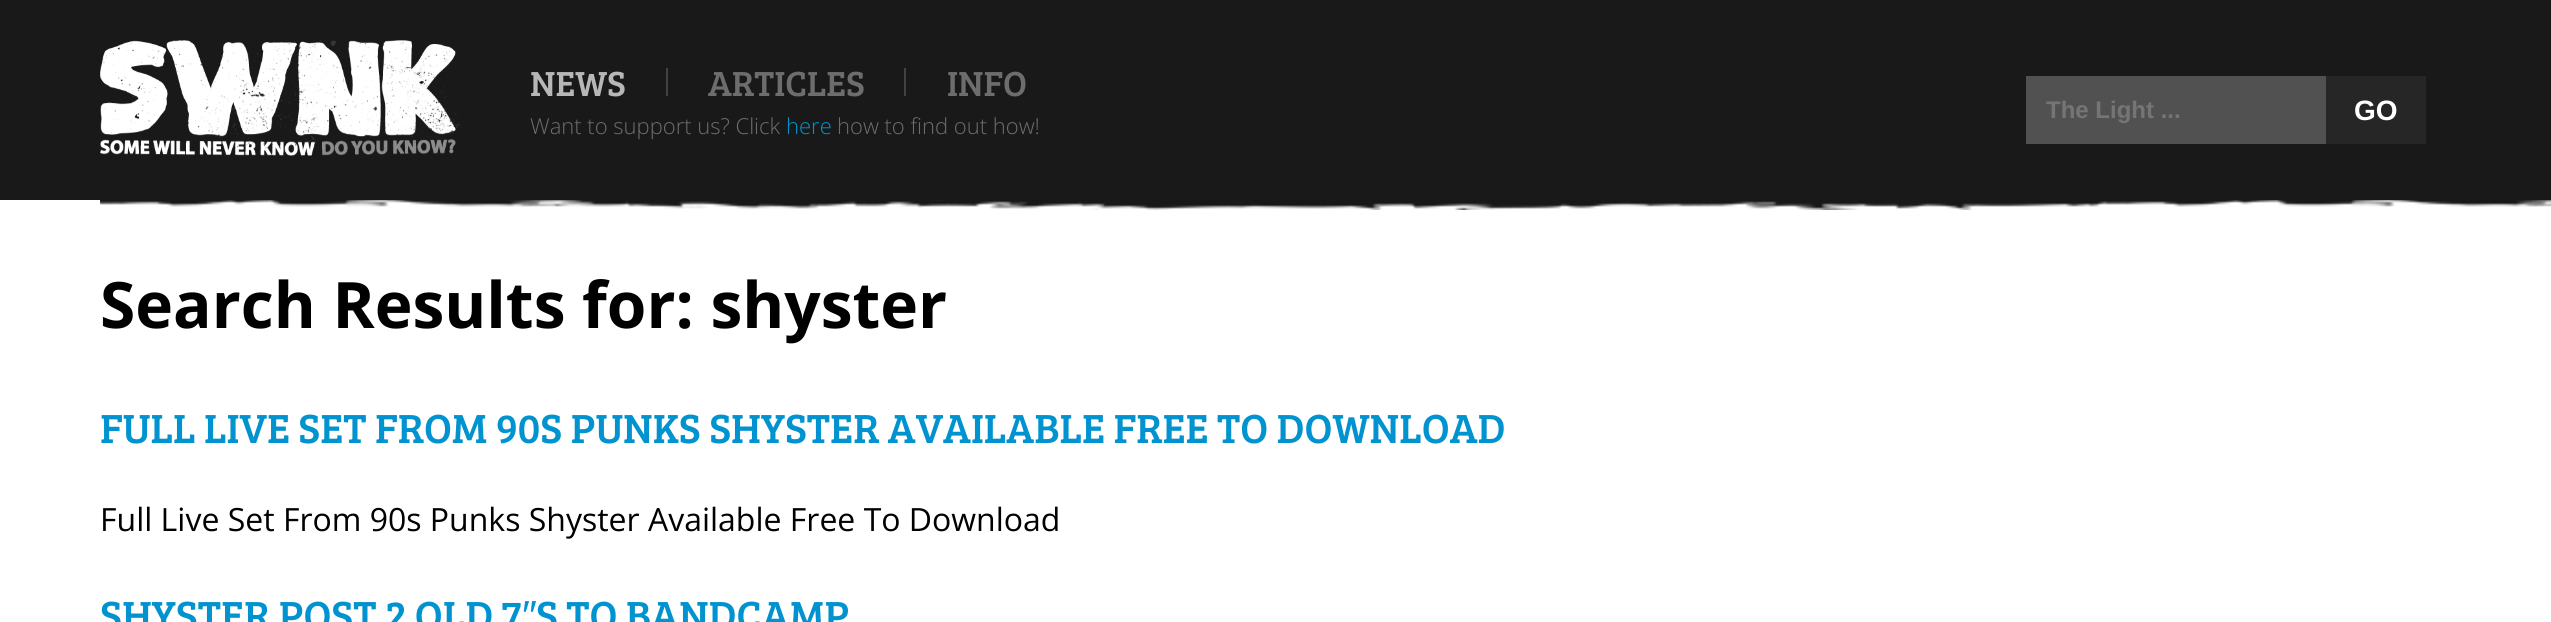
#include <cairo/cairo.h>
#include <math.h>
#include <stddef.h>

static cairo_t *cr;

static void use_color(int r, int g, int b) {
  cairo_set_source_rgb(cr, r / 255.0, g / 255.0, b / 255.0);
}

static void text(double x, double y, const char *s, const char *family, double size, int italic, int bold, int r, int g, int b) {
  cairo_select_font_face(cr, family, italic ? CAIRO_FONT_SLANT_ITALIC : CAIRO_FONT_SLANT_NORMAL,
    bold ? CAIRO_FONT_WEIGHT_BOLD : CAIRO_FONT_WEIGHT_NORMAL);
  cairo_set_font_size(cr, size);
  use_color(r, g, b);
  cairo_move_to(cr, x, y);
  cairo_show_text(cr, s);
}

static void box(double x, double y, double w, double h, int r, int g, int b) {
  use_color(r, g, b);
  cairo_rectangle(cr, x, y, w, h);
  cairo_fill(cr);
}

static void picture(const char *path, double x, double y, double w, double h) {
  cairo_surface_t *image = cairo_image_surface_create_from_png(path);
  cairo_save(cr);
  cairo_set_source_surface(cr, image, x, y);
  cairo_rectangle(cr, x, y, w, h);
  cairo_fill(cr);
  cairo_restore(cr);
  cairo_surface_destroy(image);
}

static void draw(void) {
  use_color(255, 255, 255);
  cairo_paint(cr);
  box(0, 0, 2551, 200, 25, 25, 25);
  picture("img_01.png", 100, 40, 360, 116);
  box(666, 68, 2, 28, 66, 66, 66);
  box(904, 68, 2, 28, 66, 66, 66);
  box(2026, 76, 300, 68, 81, 81, 81);
  box(2326, 76, 100, 68, 38, 38, 38);
  picture("img_02.png", 100, 200, 2451, 10);
  text(530, 96, "NEWS", "Bree Serif", 36, 0, 0, 183, 183, 183);
  text(708, 96, "ARTICLES", "Bree Serif", 36, 0, 0, 109, 109, 109);
  text(947, 96, "INFO", "Bree Serif", 36, 0, 0, 109, 109, 109);
  text(2046, 118, "The Light ...", "Liberation Sans", 24, 0, 1, 117, 117, 117);
  text(2354, 120, "GO", "Liberation Sans", 28, 0, 1, 255, 255, 255);
  text(530, 134, "Want to support us? Click", "Open Sans Light", 22, 0, 0, 109, 109, 109);
  text(786, 134, "here", "Open Sans Light", 22, 0, 0, 1, 147, 207);
  text(837, 134, "how to find out how!", "Open Sans Light", 22, 0, 0, 109, 109, 109);
  text(100, 328, "Search Results for: shyster", "Open Sans", 64, 0, 1, 0, 0, 0);
  text(100, 443, "FULL LIVE SET FROM 90S PUNKS SHYSTER AVAILABLE FREE TO DOWNLOAD", "Bree Serif", 42, 0, 0, 1, 147, 207);
  text(100, 531, "Full Live Set From 90s Punks Shyster Available Free To Download", "Open Sans", 32, 0, 0, 0, 0, 0);
  text(100, 630, "SHYSTER POST 2 OLD 7", "Bree Serif", 42, 0, 0, 1, 147, 207);
  text(522, 630, "″", "Liberation Sans", 42, 0, 0, 1, 147, 207);
  text(536, 630, "S TO BANDCAMP", "Bree Serif", 42, 0, 0, 1, 147, 207);
}

int main(void) {
  cairo_surface_t *surface = cairo_image_surface_create(CAIRO_FORMAT_RGB24, 2551, 622);
  cr = cairo_create(surface);
  cairo_font_options_t *options = cairo_font_options_create();
  cairo_font_options_set_hint_metrics(options, CAIRO_HINT_METRICS_OFF);
  cairo_font_options_set_hint_style(options, CAIRO_HINT_STYLE_NONE);
  cairo_set_font_options(cr, options);
  cairo_set_miter_limit(cr, 4);
  draw();
  cairo_surface_write_to_png(surface, "out.png");
  cairo_font_options_destroy(options);
  cairo_destroy(cr);
  cairo_surface_destroy(surface);
  return 0;
}
